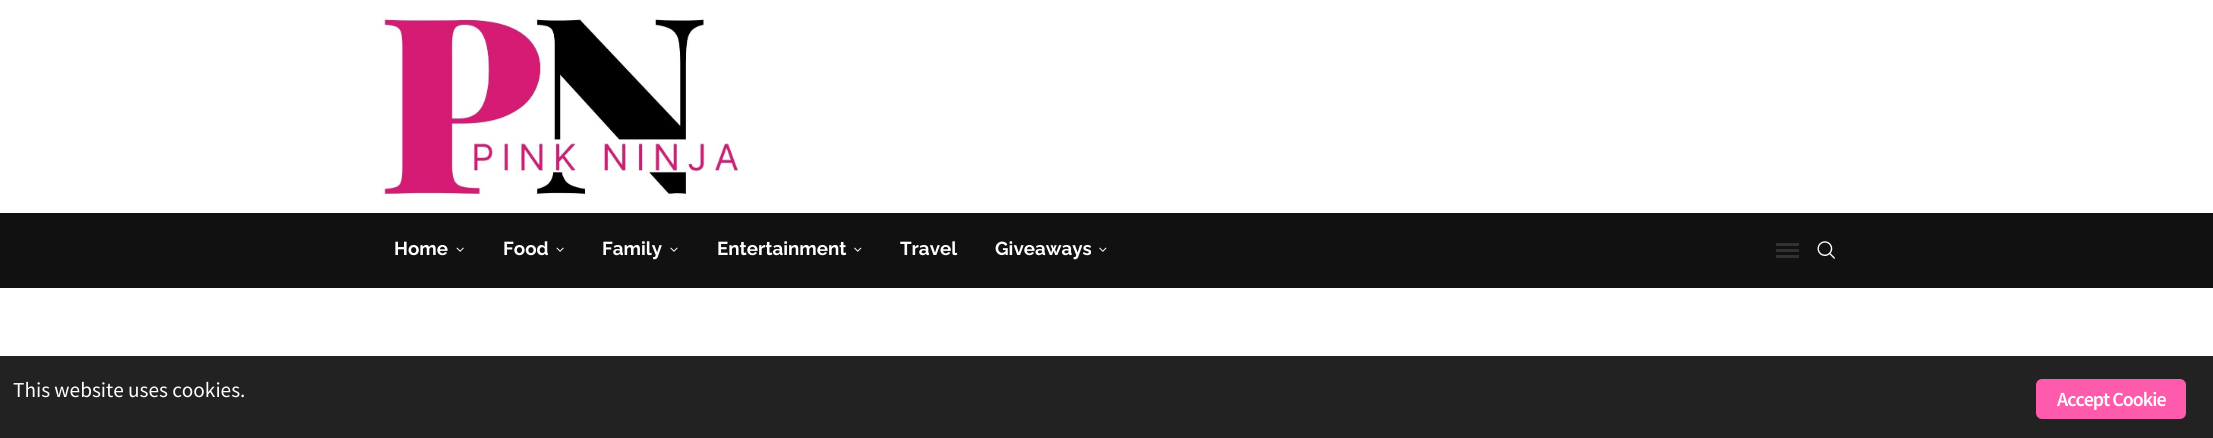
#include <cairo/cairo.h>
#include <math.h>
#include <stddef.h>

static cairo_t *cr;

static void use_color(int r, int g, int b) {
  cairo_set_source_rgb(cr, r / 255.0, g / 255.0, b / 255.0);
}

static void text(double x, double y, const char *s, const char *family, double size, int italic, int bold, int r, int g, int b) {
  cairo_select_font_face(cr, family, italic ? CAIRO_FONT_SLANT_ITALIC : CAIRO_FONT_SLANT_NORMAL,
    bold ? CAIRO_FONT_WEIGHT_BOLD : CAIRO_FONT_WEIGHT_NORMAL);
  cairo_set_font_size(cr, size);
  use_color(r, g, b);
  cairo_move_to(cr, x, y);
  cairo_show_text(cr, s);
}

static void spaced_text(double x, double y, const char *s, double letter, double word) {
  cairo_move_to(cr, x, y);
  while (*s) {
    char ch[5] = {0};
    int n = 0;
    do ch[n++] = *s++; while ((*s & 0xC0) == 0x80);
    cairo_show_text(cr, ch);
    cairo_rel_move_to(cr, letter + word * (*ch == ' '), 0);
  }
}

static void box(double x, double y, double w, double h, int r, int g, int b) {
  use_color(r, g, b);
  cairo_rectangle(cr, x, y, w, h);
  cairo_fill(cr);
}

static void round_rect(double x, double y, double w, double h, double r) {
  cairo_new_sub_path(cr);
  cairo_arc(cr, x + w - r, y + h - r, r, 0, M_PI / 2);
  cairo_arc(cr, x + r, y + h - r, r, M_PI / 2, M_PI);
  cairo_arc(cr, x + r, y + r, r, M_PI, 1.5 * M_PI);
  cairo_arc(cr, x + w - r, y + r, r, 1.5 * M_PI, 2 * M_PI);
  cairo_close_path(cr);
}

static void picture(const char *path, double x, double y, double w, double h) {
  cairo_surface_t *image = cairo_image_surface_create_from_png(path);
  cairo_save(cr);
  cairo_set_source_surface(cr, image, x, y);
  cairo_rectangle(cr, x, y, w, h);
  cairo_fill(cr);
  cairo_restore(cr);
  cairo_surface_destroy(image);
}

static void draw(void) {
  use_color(255, 255, 255);
  cairo_paint(cr);
  picture("img_01.png", 382, 18, 358, 177);
  box(0, 213, 2213, 75, 17, 17, 17);
  picture("img_02.png", 456, 247, 8, 5);
  picture("img_03.png", 556, 247, 8, 5);
  picture("img_04.png", 670, 247, 8, 5);
  picture("img_05.png", 854, 247, 8, 5);
  picture("img_06.png", 1099, 247, 8, 5);
  box(1776, 243, 23, 3, 49, 49, 49);
  box(1776, 255, 23, 3, 49, 49, 49);
  box(1776, 249, 23, 3, 49, 49, 49);
  picture("img_07.png", 1817, 241, 18, 18);
  box(0, 356, 2213, 82, 34, 34, 34);
  use_color(254, 91, 172);
  round_rect(2036, 379, 150, 40, 6);
  cairo_fill(cr);
  text(394, 255, "Home", "Raleway", 18.75, 0, 1, 255, 255, 255);
  text(503, 255, "Food", "Raleway", 18.75, 0, 1, 255, 255, 255);
  text(602, 255, "Family", "Raleway", 18.75, 0, 1, 255, 255, 255);
  text(717, 255, "Entertainment", "Raleway", 18.75, 0, 1, 255, 255, 255);
  text(900, 255, "Travel", "Raleway", 18.75, 0, 1, 255, 255, 255);
  text(995, 255, "Giveaways", "Raleway", 18.75, 0, 1, 255, 255, 255);
  text(13, 397, "This website uses cookies.", "Source Sans Pro", 21.25, 0, 0, 255, 255, 255);
  cairo_select_font_face(cr, "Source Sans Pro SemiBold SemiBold", CAIRO_FONT_SLANT_NORMAL, CAIRO_FONT_WEIGHT_NORMAL);
  cairo_set_font_size(cr, 20);
  spaced_text(2057, 406, "Accept Cookie", -1, 0);
}

int main(void) {
  cairo_surface_t *surface = cairo_image_surface_create(CAIRO_FORMAT_RGB24, 2213, 438);
  cr = cairo_create(surface);
  cairo_font_options_t *options = cairo_font_options_create();
  cairo_font_options_set_hint_metrics(options, CAIRO_HINT_METRICS_OFF);
  cairo_font_options_set_hint_style(options, CAIRO_HINT_STYLE_NONE);
  cairo_set_font_options(cr, options);
  cairo_set_miter_limit(cr, 4);
  draw();
  cairo_surface_write_to_png(surface, "out.png");
  cairo_font_options_destroy(options);
  cairo_destroy(cr);
  cairo_surface_destroy(surface);
  return 0;
}
